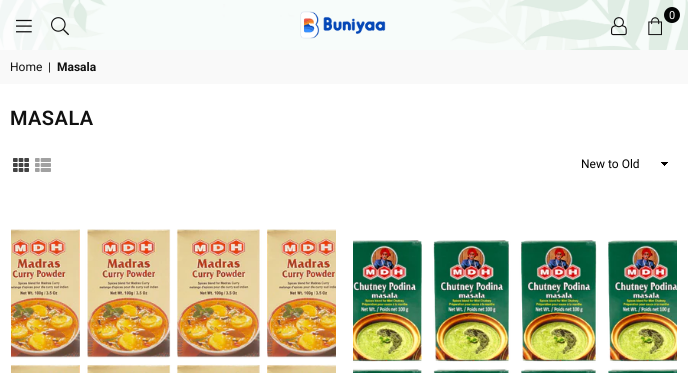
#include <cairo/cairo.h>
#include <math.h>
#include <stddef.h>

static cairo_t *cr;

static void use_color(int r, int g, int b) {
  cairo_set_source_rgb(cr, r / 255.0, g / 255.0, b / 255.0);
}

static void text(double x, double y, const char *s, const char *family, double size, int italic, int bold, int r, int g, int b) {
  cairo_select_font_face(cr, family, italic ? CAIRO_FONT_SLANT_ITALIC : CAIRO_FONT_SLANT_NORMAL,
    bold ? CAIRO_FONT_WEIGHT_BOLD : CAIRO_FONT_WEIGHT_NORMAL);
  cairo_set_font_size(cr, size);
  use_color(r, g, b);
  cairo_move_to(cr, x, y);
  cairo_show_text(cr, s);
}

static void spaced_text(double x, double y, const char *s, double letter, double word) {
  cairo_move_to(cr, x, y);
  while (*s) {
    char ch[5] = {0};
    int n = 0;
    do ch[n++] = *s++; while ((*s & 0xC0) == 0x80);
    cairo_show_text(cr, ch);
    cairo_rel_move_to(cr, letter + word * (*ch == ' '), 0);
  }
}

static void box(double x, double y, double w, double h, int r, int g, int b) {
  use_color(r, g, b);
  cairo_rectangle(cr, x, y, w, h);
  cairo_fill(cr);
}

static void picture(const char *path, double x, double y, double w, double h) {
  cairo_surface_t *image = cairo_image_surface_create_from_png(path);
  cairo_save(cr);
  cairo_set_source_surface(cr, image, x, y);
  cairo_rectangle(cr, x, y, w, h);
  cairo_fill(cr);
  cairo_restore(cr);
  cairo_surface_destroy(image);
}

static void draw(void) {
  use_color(255, 255, 255);
  cairo_paint(cr);
  picture("img_01.png", 0, 0, 688, 50);
  picture("img_02.png", 300, 11, 86, 28);
  use_color(3, 5, 5);
  cairo_arc(cr, 672, 15, 8, 0, 2 * M_PI);
  cairo_fill(cr);
  picture("img_03.png", 648, 17, 14, 19);
  picture("img_04.png", 611, 17, 16, 19);
  picture("img_05.png", 16, 19, 16, 14);
  picture("img_06.png", 51, 17, 18, 19);
  box(0, 50, 688, 34, 249, 249, 249);
  picture("img_07.png", 13, 158, 16, 14);
  picture("img_08.png", 35, 158, 16, 14);
  picture("img_09.png", 661, 162, 7, 4);
  picture("img_10.png", 11, 229, 325, 144);
  picture("img_11.png", 353, 240, 324, 133);
  text(669, 19, "0", "Roboto", 11, 0, 0, 255, 255, 255);
  text(10, 71, "Home", "Roboto", 12, 0, 0, 17, 17, 17);
  text(48, 71, "|", "Roboto", 12, 0, 0, 17, 17, 17);
  text(57, 71, "Masala", "Roboto", 12, 0, 1, 17, 17, 17);
  cairo_select_font_face(cr, "Roboto SemiBold", CAIRO_FONT_SLANT_NORMAL, CAIRO_FONT_WEIGHT_NORMAL);
  cairo_set_font_size(cr, 20);
  spaced_text(10, 125, "MASALA", 0.5, 0);
  text(581, 168, "New to Old", "Roboto", 12, 0, 0, 0, 0, 0);
}

int main(void) {
  cairo_surface_t *surface = cairo_image_surface_create(CAIRO_FORMAT_RGB24, 688, 373);
  cr = cairo_create(surface);
  cairo_font_options_t *options = cairo_font_options_create();
  cairo_font_options_set_hint_metrics(options, CAIRO_HINT_METRICS_OFF);
  cairo_font_options_set_hint_style(options, CAIRO_HINT_STYLE_NONE);
  cairo_set_font_options(cr, options);
  cairo_set_miter_limit(cr, 4);
  draw();
  cairo_surface_write_to_png(surface, "out.png");
  cairo_font_options_destroy(options);
  cairo_destroy(cr);
  cairo_surface_destroy(surface);
  return 0;
}
